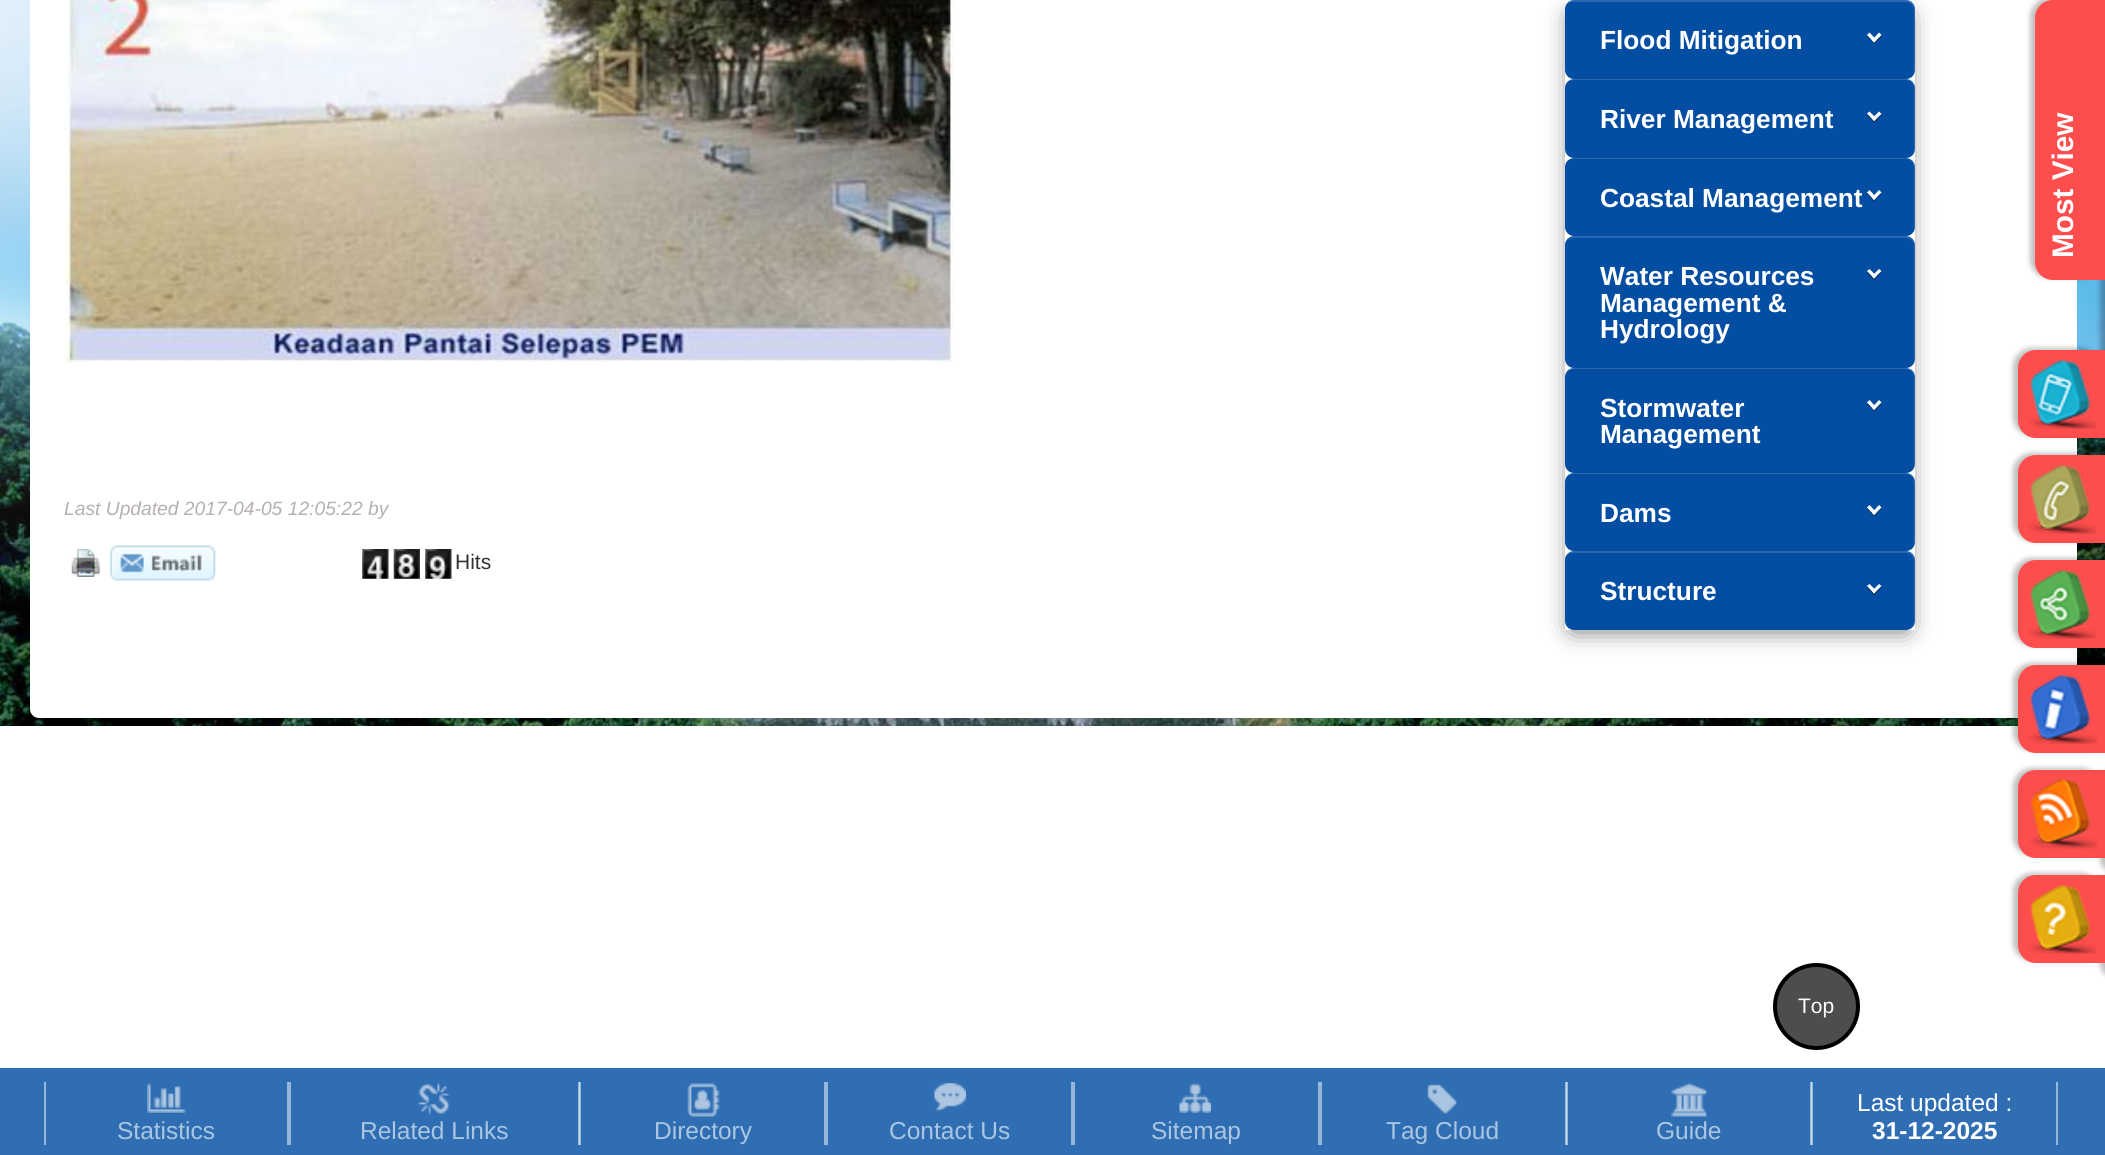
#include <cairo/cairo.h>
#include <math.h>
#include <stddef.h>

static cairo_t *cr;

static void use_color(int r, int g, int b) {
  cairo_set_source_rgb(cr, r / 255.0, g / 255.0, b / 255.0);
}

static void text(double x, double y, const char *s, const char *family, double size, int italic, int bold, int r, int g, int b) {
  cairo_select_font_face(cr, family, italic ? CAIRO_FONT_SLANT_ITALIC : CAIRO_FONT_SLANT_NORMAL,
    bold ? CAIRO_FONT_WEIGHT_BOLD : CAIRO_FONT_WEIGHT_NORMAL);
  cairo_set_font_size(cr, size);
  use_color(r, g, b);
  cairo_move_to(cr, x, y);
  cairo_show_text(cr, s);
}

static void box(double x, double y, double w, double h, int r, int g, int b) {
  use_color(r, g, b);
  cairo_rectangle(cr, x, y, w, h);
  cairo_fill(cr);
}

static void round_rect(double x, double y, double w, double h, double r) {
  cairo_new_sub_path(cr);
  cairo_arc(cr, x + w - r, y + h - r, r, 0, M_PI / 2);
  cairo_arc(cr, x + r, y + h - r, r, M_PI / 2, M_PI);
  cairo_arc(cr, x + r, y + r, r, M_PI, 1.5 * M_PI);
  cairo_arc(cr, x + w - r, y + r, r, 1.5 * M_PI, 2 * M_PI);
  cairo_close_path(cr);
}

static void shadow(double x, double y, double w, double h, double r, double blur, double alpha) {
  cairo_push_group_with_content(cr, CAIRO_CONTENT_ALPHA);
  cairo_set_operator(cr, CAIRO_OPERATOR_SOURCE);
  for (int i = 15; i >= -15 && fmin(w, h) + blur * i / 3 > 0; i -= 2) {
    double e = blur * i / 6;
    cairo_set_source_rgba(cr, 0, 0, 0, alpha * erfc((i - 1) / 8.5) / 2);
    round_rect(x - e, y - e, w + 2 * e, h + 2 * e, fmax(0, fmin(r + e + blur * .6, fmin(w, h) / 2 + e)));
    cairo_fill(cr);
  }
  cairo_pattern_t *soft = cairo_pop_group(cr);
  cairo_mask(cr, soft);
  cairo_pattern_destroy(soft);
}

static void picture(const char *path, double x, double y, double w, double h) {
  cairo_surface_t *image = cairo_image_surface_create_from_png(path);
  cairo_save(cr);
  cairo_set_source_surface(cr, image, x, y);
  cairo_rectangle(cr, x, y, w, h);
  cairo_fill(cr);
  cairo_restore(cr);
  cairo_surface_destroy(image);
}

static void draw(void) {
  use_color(255, 255, 255);
  cairo_paint(cr);
  picture("img_01.png", 0, 0, 2105, 726);
  use_color(255, 255, 255);
  round_rect(30, -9, 2047, 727, 9);
  cairo_fill(cr);
  cairo_save(cr);
  cairo_set_fill_rule(cr, CAIRO_FILL_RULE_EVEN_ODD);
  cairo_new_path(cr);
  cairo_move_to(cr, 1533, 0);
  cairo_line_to(cr, 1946, 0);
  cairo_line_to(cr, 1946, 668);
  cairo_line_to(cr, 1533, 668);
  cairo_close_path(cr);
  cairo_move_to(cr, 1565, 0);
  cairo_line_to(cr, 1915, 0);
  cairo_line_to(cr, 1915, 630);
  cairo_line_to(cr, 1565, 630);
  cairo_close_path(cr);
  cairo_clip(cr);
  use_color(85, 85, 85);
  shadow(1573, 16, 333, 612, 0, 13, 1);
  cairo_restore(cr);
  use_color(3, 78, 162);
  round_rect(1565, 0, 350, 79, 9);
  cairo_fill(cr);
  cairo_set_source_rgba(cr, 1, 1, 1, 0.15);
  cairo_new_path(cr);
  cairo_move_to(cr, 1573, 2);
  cairo_line_to(cr, 1906, 2);
  cairo_curve_to(cr, 1911, 2, 1914, 6, 1914, 10);
  cairo_line_to(cr, 1914, 75);
  cairo_curve_to(cr, 1915, 73, 1915, 72, 1915, 70);
  cairo_line_to(cr, 1915, 9);
  cairo_curve_to(cr, 1915, 4, 1911, 0, 1906, 0);
  cairo_line_to(cr, 1574, 0);
  cairo_curve_to(cr, 1570, 0, 1567, 2, 1566, 5);
  cairo_curve_to(cr, 1567, 3, 1570, 2, 1573, 2);
  cairo_close_path(cr);
  cairo_fill(cr);
  use_color(2, 51, 105);
  cairo_new_path(cr);
  cairo_move_to(cr, 1874, 44);
  cairo_line_to(cr, 1867, 36.5);
  cairo_line_to(cr, 1869.5, 34.5);
  cairo_line_to(cr, 1874, 39);
  cairo_close_path(cr);
  cairo_move_to(cr, 1881.5, 37);
  cairo_line_to(cr, 1874, 44);
  cairo_line_to(cr, 1874, 39);
  cairo_line_to(cr, 1879, 34.5);
  cairo_close_path(cr);
  cairo_fill(cr);
  use_color(255, 255, 255);
  cairo_new_path(cr);
  cairo_move_to(cr, 1874, 42.5);
  cairo_line_to(cr, 1867, 35);
  cairo_line_to(cr, 1869.5, 32.5);
  cairo_line_to(cr, 1876.5, 40);
  cairo_close_path(cr);
  cairo_fill(cr);
  cairo_new_path(cr);
  cairo_move_to(cr, 1874, 42.5);
  cairo_line_to(cr, 1872, 40);
  cairo_line_to(cr, 1879, 32.5);
  cairo_line_to(cr, 1881.5, 35);
  cairo_close_path(cr);
  cairo_fill(cr);
  use_color(3, 78, 162);
  round_rect(1565, 79, 350, 79, 9);
  cairo_fill(cr);
  cairo_set_source_rgba(cr, 1, 1, 1, 0.15);
  cairo_new_path(cr);
  cairo_move_to(cr, 1573, 80);
  cairo_line_to(cr, 1906, 80);
  cairo_curve_to(cr, 1911, 80, 1914, 84, 1914, 89);
  cairo_line_to(cr, 1914, 150);
  cairo_curve_to(cr, 1914, 152, 1914, 153, 1913, 155);
  cairo_curve_to(cr, 1914, 153, 1915, 151, 1915, 149);
  cairo_line_to(cr, 1915, 88);
  cairo_curve_to(cr, 1915, 83, 1911, 79, 1906, 79);
  cairo_line_to(cr, 1574, 79);
  cairo_curve_to(cr, 1571, 79, 1569, 80, 1567, 82);
  cairo_curve_to(cr, 1569, 81, 1571, 80, 1573, 80);
  cairo_close_path(cr);
  cairo_fill(cr);
  use_color(2, 51, 105);
  cairo_new_path(cr);
  cairo_move_to(cr, 1874, 123);
  cairo_line_to(cr, 1867, 115.5);
  cairo_line_to(cr, 1869.5, 113);
  cairo_line_to(cr, 1874, 118);
  cairo_close_path(cr);
  cairo_move_to(cr, 1881.5, 115.5);
  cairo_line_to(cr, 1874, 123);
  cairo_line_to(cr, 1874, 118);
  cairo_line_to(cr, 1879, 113);
  cairo_close_path(cr);
  cairo_fill(cr);
  use_color(255, 255, 255);
  cairo_new_path(cr);
  cairo_move_to(cr, 1874, 121);
  cairo_line_to(cr, 1867, 113.5);
  cairo_line_to(cr, 1869.5, 111.5);
  cairo_line_to(cr, 1876.5, 118.5);
  cairo_close_path(cr);
  cairo_fill(cr);
  cairo_new_path(cr);
  cairo_move_to(cr, 1874, 121);
  cairo_line_to(cr, 1872, 118.5);
  cairo_line_to(cr, 1879, 111.5);
  cairo_line_to(cr, 1881.5, 114);
  cairo_close_path(cr);
  cairo_fill(cr);
  use_color(3, 78, 162);
  round_rect(1565, 158, 350, 78, 9);
  cairo_fill(cr);
  cairo_set_source_rgba(cr, 1, 1, 1, 0.15);
  cairo_new_path(cr);
  cairo_move_to(cr, 1573, 159);
  cairo_line_to(cr, 1906, 159);
  cairo_curve_to(cr, 1911, 159, 1914, 163, 1914, 168);
  cairo_line_to(cr, 1914, 232);
  cairo_curve_to(cr, 1915, 230, 1915, 229, 1915, 227);
  cairo_line_to(cr, 1915, 167);
  cairo_curve_to(cr, 1915, 162, 1911, 158, 1906, 158);
  cairo_line_to(cr, 1574, 158);
  cairo_curve_to(cr, 1571, 158, 1569, 159, 1567, 161);
  cairo_curve_to(cr, 1569, 160, 1571, 159, 1573, 159);
  cairo_close_path(cr);
  cairo_fill(cr);
  use_color(2, 51, 105);
  cairo_new_path(cr);
  cairo_move_to(cr, 1874, 201.5);
  cairo_line_to(cr, 1867, 194);
  cairo_line_to(cr, 1869.5, 192);
  cairo_line_to(cr, 1874, 196.5);
  cairo_close_path(cr);
  cairo_move_to(cr, 1881.5, 194);
  cairo_line_to(cr, 1874, 201.5);
  cairo_line_to(cr, 1874, 196.5);
  cairo_line_to(cr, 1879, 192);
  cairo_close_path(cr);
  cairo_fill(cr);
  use_color(255, 255, 255);
  cairo_new_path(cr);
  cairo_move_to(cr, 1874, 200);
  cairo_line_to(cr, 1867, 192.5);
  cairo_line_to(cr, 1869.5, 190);
  cairo_line_to(cr, 1876.5, 197.5);
  cairo_close_path(cr);
  cairo_fill(cr);
  cairo_new_path(cr);
  cairo_move_to(cr, 1874, 200);
  cairo_line_to(cr, 1872, 197.5);
  cairo_line_to(cr, 1879, 190);
  cairo_line_to(cr, 1881.5, 192.5);
  cairo_close_path(cr);
  cairo_fill(cr);
  use_color(3, 78, 162);
  round_rect(1565, 236, 350, 132, 9);
  cairo_fill(cr);
  cairo_set_source_rgba(cr, 1, 1, 1, 0.15);
  cairo_new_path(cr);
  cairo_move_to(cr, 1573, 238);
  cairo_line_to(cr, 1906, 238);
  cairo_curve_to(cr, 1911, 238, 1914, 242, 1914, 247);
  cairo_line_to(cr, 1914, 360);
  cairo_curve_to(cr, 1914, 362, 1914, 363, 1913, 365);
  cairo_curve_to(cr, 1914, 363, 1915, 361, 1915, 359);
  cairo_line_to(cr, 1915, 245);
  cairo_curve_to(cr, 1915, 240, 1911, 236, 1906, 236);
  cairo_line_to(cr, 1574, 236);
  cairo_curve_to(cr, 1570, 236, 1567, 238, 1566, 242);
  cairo_curve_to(cr, 1567, 240, 1570, 238, 1573, 238);
  cairo_close_path(cr);
  cairo_fill(cr);
  use_color(2, 51, 105);
  cairo_new_path(cr);
  cairo_move_to(cr, 1874, 280.5);
  cairo_line_to(cr, 1867, 273);
  cairo_line_to(cr, 1869.5, 270.5);
  cairo_line_to(cr, 1874, 275.5);
  cairo_close_path(cr);
  cairo_move_to(cr, 1881.5, 273);
  cairo_line_to(cr, 1874, 280.5);
  cairo_line_to(cr, 1874, 275.5);
  cairo_line_to(cr, 1879, 270.5);
  cairo_close_path(cr);
  cairo_fill(cr);
  use_color(255, 255, 255);
  cairo_new_path(cr);
  cairo_move_to(cr, 1874, 278.5);
  cairo_line_to(cr, 1867, 271);
  cairo_line_to(cr, 1869.5, 269);
  cairo_line_to(cr, 1876.5, 276);
  cairo_close_path(cr);
  cairo_fill(cr);
  cairo_new_path(cr);
  cairo_move_to(cr, 1874, 278.5);
  cairo_line_to(cr, 1872, 276);
  cairo_line_to(cr, 1879, 269);
  cairo_line_to(cr, 1881.5, 271);
  cairo_close_path(cr);
  cairo_fill(cr);
  use_color(3, 78, 162);
  round_rect(1565, 368, 350, 105, 9);
  cairo_fill(cr);
  cairo_set_source_rgba(cr, 1, 1, 1, 0.15);
  cairo_new_path(cr);
  cairo_move_to(cr, 1573, 369);
  cairo_line_to(cr, 1906, 369);
  cairo_curve_to(cr, 1911, 369, 1914, 373, 1914, 378);
  cairo_line_to(cr, 1914, 466);
  cairo_line_to(cr, 1913, 469);
  cairo_curve_to(cr, 1914, 468, 1915, 466, 1915, 464);
  cairo_line_to(cr, 1915, 377);
  cairo_curve_to(cr, 1915, 372, 1911, 368, 1906, 368);
  cairo_line_to(cr, 1574, 368);
  cairo_curve_to(cr, 1571, 368, 1569, 369, 1567, 371);
  cairo_curve_to(cr, 1569, 370, 1571, 369, 1573, 369);
  cairo_close_path(cr);
  cairo_fill(cr);
  use_color(2, 51, 105);
  cairo_new_path(cr);
  cairo_move_to(cr, 1874, 411.5);
  cairo_line_to(cr, 1867, 404);
  cairo_line_to(cr, 1869.5, 402);
  cairo_line_to(cr, 1874, 406.5);
  cairo_close_path(cr);
  cairo_move_to(cr, 1881.5, 404.5);
  cairo_line_to(cr, 1874, 411.5);
  cairo_line_to(cr, 1874, 406.5);
  cairo_line_to(cr, 1879, 402);
  cairo_close_path(cr);
  cairo_fill(cr);
  use_color(255, 255, 255);
  cairo_new_path(cr);
  cairo_move_to(cr, 1874, 410);
  cairo_line_to(cr, 1867, 402.5);
  cairo_line_to(cr, 1869.5, 400);
  cairo_line_to(cr, 1876.5, 407.5);
  cairo_close_path(cr);
  cairo_fill(cr);
  cairo_new_path(cr);
  cairo_move_to(cr, 1874, 410);
  cairo_line_to(cr, 1872, 407.5);
  cairo_line_to(cr, 1879, 400);
  cairo_line_to(cr, 1881.5, 402.5);
  cairo_close_path(cr);
  cairo_fill(cr);
  use_color(3, 78, 162);
  round_rect(1565, 473, 350, 78, 9);
  cairo_fill(cr);
  cairo_set_source_rgba(cr, 1, 1, 1, 0.15);
  cairo_new_path(cr);
  cairo_move_to(cr, 1573, 474);
  cairo_line_to(cr, 1906, 474);
  cairo_curve_to(cr, 1911, 474, 1914, 478, 1914, 483);
  cairo_line_to(cr, 1914, 547);
  cairo_curve_to(cr, 1915, 545, 1915, 544, 1915, 542);
  cairo_line_to(cr, 1915, 482);
  cairo_curve_to(cr, 1915, 477, 1911, 473, 1906, 473);
  cairo_line_to(cr, 1574, 473);
  cairo_curve_to(cr, 1571, 473, 1569, 474, 1567, 476);
  cairo_curve_to(cr, 1569, 475, 1571, 474, 1573, 474);
  cairo_close_path(cr);
  cairo_fill(cr);
  use_color(2, 51, 105);
  cairo_new_path(cr);
  cairo_move_to(cr, 1874, 516.5);
  cairo_line_to(cr, 1867, 509);
  cairo_line_to(cr, 1869.5, 507);
  cairo_line_to(cr, 1874, 511.5);
  cairo_close_path(cr);
  cairo_move_to(cr, 1881.5, 509);
  cairo_line_to(cr, 1874, 516.5);
  cairo_line_to(cr, 1874, 511.5);
  cairo_line_to(cr, 1879, 507);
  cairo_close_path(cr);
  cairo_fill(cr);
  use_color(255, 255, 255);
  cairo_new_path(cr);
  cairo_move_to(cr, 1874, 515);
  cairo_line_to(cr, 1867, 507.5);
  cairo_line_to(cr, 1869.5, 505);
  cairo_line_to(cr, 1876.5, 512.5);
  cairo_close_path(cr);
  cairo_fill(cr);
  cairo_new_path(cr);
  cairo_move_to(cr, 1874, 515);
  cairo_line_to(cr, 1872, 512.5);
  cairo_line_to(cr, 1879, 505);
  cairo_line_to(cr, 1881.5, 507.5);
  cairo_close_path(cr);
  cairo_fill(cr);
  use_color(3, 78, 162);
  round_rect(1565, 551, 350, 79, 9);
  cairo_fill(cr);
  cairo_set_source_rgba(cr, 1, 1, 1, 0.15);
  cairo_new_path(cr);
  cairo_move_to(cr, 1573, 553);
  cairo_line_to(cr, 1906, 553);
  cairo_curve_to(cr, 1911, 553, 1914, 557, 1914, 562);
  cairo_line_to(cr, 1914, 626);
  cairo_curve_to(cr, 1915, 624, 1915, 623, 1915, 621);
  cairo_line_to(cr, 1915, 560);
  cairo_curve_to(cr, 1915, 555, 1911, 551, 1906, 551);
  cairo_line_to(cr, 1574, 551);
  cairo_curve_to(cr, 1570, 551, 1567, 553, 1566, 557);
  cairo_curve_to(cr, 1567, 555, 1570, 553, 1573, 553);
  cairo_close_path(cr);
  cairo_fill(cr);
  use_color(2, 51, 105);
  cairo_new_path(cr);
  cairo_move_to(cr, 1874, 595.5);
  cairo_line_to(cr, 1867, 588);
  cairo_line_to(cr, 1869.5, 585.5);
  cairo_line_to(cr, 1874, 590.5);
  cairo_close_path(cr);
  cairo_move_to(cr, 1881.5, 588);
  cairo_line_to(cr, 1874, 595.5);
  cairo_line_to(cr, 1874, 590.5);
  cairo_line_to(cr, 1879, 585.5);
  cairo_close_path(cr);
  cairo_fill(cr);
  use_color(255, 255, 255);
  cairo_new_path(cr);
  cairo_move_to(cr, 1874, 593.5);
  cairo_line_to(cr, 1867, 586);
  cairo_line_to(cr, 1869.5, 584);
  cairo_line_to(cr, 1876.5, 591);
  cairo_close_path(cr);
  cairo_fill(cr);
  cairo_new_path(cr);
  cairo_move_to(cr, 1874, 593.5);
  cairo_line_to(cr, 1872, 591);
  cairo_line_to(cr, 1879, 584);
  cairo_line_to(cr, 1881.5, 586);
  cairo_close_path(cr);
  cairo_fill(cr);
  picture("img_02.png", 66, 0, 888, 364);
  picture("img_03.png", 71, 549, 29, 28);
  picture("img_04.png", 110, 545, 106, 36);
  picture("img_05.png", 362, 549, 27, 30);
  picture("img_06.png", 393, 549, 27, 30);
  picture("img_07.png", 425, 549, 27, 30);
  use_color(77, 77, 77);
  cairo_arc(cr, 1816.5, 1006.5, 41.5, 0, 2 * M_PI);
  cairo_fill_preserve(cr);
  use_color(0, 0, 0);
  cairo_set_line_width(cr, 4);
  cairo_stroke(cr);
  use_color(0, 0, 0);
  shadow(2100, -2, 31, 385, 18, 2.5, 0.25);
  shadow(2030, -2, 70, 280, 18, 2.5, 0.25);
  use_color(254, 77, 77);
  cairo_new_path(cr);
  cairo_move_to(cr, 2053, 0);
  cairo_line_to(cr, 2105, 0);
  cairo_line_to(cr, 2105, 280);
  cairo_line_to(cr, 2053, 280);
  cairo_curve_to(cr, 2043, 280, 2035, 272, 2035, 262);
  cairo_line_to(cr, 2035, 18);
  cairo_curve_to(cr, 2035, 8, 2043, 0, 2053, 0);
  cairo_close_path(cr);
  cairo_fill(cr);
  use_color(0, 0, 0);
  shadow(2100, 348, 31, 245, 18, 2.5, 0.25);
  shadow(2013, 348, 87, 88, 18, 2.5, 0.25);
  use_color(254, 77, 77);
  cairo_new_path(cr);
  cairo_move_to(cr, 2036, 350);
  cairo_line_to(cr, 2105, 350);
  cairo_line_to(cr, 2105, 438);
  cairo_line_to(cr, 2036, 438);
  cairo_curve_to(cr, 2026, 438, 2018, 430, 2018, 420);
  cairo_line_to(cr, 2018, 368);
  cairo_curve_to(cr, 2018, 358, 2026, 350, 2036, 350);
  cairo_close_path(cr);
  cairo_fill(cr);
  picture("img_08.png", 2028, 360, 69, 69);
  use_color(0, 0, 0);
  shadow(2100, 453, 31, 105, 18, 2.5, 0.25);
  shadow(2013, 453, 87, 88, 18, 2.5, 0.25);
  use_color(254, 77, 77);
  cairo_new_path(cr);
  cairo_move_to(cr, 2036, 455);
  cairo_line_to(cr, 2105, 455);
  cairo_line_to(cr, 2105, 543);
  cairo_line_to(cr, 2036, 543);
  cairo_curve_to(cr, 2026, 543, 2018, 535, 2018, 525);
  cairo_line_to(cr, 2018, 473);
  cairo_curve_to(cr, 2018, 463, 2026, 455, 2036, 455);
  cairo_close_path(cr);
  cairo_fill(cr);
  picture("img_09.png", 2028, 465, 69, 69);
  use_color(0, 0, 0);
  shadow(2100, 558, 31, 105, 18, 2.5, 0.25);
  shadow(2013, 558, 87, 88, 18, 2.5, 0.25);
  use_color(254, 77, 77);
  cairo_new_path(cr);
  cairo_move_to(cr, 2036, 560);
  cairo_line_to(cr, 2105, 560);
  cairo_line_to(cr, 2105, 648);
  cairo_line_to(cr, 2036, 648);
  cairo_curve_to(cr, 2026, 648, 2018, 640, 2018, 630);
  cairo_line_to(cr, 2018, 578);
  cairo_curve_to(cr, 2018, 568, 2026, 560, 2036, 560);
  cairo_close_path(cr);
  cairo_fill(cr);
  picture("img_10.png", 2028, 570, 69, 69);
  use_color(0, 0, 0);
  shadow(2100, 663, 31, 88, 18, 2.5, 0.25);
  shadow(2013, 663, 87, 88, 18, 2.5, 0.25);
  use_color(254, 77, 77);
  cairo_new_path(cr);
  cairo_move_to(cr, 2036, 665);
  cairo_line_to(cr, 2105, 665);
  cairo_line_to(cr, 2105, 753);
  cairo_line_to(cr, 2036, 753);
  cairo_curve_to(cr, 2026, 753, 2018, 745, 2018, 735);
  cairo_line_to(cr, 2018, 683);
  cairo_curve_to(cr, 2018, 673, 2026, 665, 2036, 665);
  cairo_close_path(cr);
  cairo_fill(cr);
  picture("img_11.png", 2028, 675, 69, 69);
  use_color(0, 0, 0);
  shadow(2100, 768, 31, 105, 18, 2.5, 0.25);
  shadow(2013, 768, 87, 88, 18, 2.5, 0.25);
  use_color(254, 77, 77);
  cairo_new_path(cr);
  cairo_move_to(cr, 2036, 770);
  cairo_line_to(cr, 2105, 770);
  cairo_line_to(cr, 2105, 858);
  cairo_line_to(cr, 2036, 858);
  cairo_curve_to(cr, 2026, 858, 2018, 850, 2018, 840);
  cairo_line_to(cr, 2018, 788);
  cairo_curve_to(cr, 2018, 778, 2026, 770, 2036, 770);
  cairo_close_path(cr);
  cairo_fill(cr);
  picture("img_12.png", 2029, 778, 68, 71);
  use_color(0, 0, 0);
  shadow(2100, 873, 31, 105, 18, 2.5, 0.25);
  shadow(2013, 873, 87, 88, 18, 2.5, 0.25);
  use_color(254, 77, 77);
  cairo_new_path(cr);
  cairo_move_to(cr, 2036, 875);
  cairo_line_to(cr, 2105, 875);
  cairo_line_to(cr, 2105, 963);
  cairo_line_to(cr, 2036, 963);
  cairo_curve_to(cr, 2026, 963, 2018, 955, 2018, 945);
  cairo_line_to(cr, 2018, 893);
  cairo_curve_to(cr, 2018, 883, 2026, 875, 2036, 875);
  cairo_close_path(cr);
  cairo_fill(cr);
  picture("img_13.png", 2028, 885, 69, 69);
  box(0, 1068, 2105, 87, 47, 110, 179);
  box(1812, 1082, 1, 63, 151, 183, 217);
  box(1567, 1082, 1, 63, 151, 183, 217);
  box(580, 1082, 1, 63, 151, 183, 217);
  box(287, 1082, 4, 63, 151, 183, 217);
  box(44, 1082, 2, 63, 151, 183, 217);
  picture("img_14.png", 147, 1083, 39, 30);
  box(578, 1082, 1, 63, 151, 183, 217);
  box(579, 1082, 1, 63, 203, 219, 236);
  picture("img_15.png", 418, 1083, 32, 32);
  box(824, 1082, 4, 63, 151, 183, 217);
  picture("img_16.png", 687, 1083, 33, 34);
  box(1071, 1082, 4, 63, 151, 183, 217);
  picture("img_17.png", 934, 1083, 32, 29);
  box(1318, 1082, 4, 63, 151, 183, 217);
  picture("img_18.png", 1179, 1083, 32, 30);
  box(1565, 1082, 1, 63, 151, 183, 217);
  box(1566, 1082, 1, 63, 203, 219, 236);
  picture("img_19.png", 1427, 1084, 30, 30);
  box(1810, 1082, 1, 63, 151, 183, 217);
  box(1811, 1082, 1, 63, 203, 219, 236);
  picture("img_20.png", 1671, 1083, 36, 34);
  box(2056, 1082, 2, 63, 151, 183, 217);
  text(1600, 49, "Flood Mitigation", "Liberation Sans", 26.25, 0, 1, 255, 255, 255);
  text(1600, 128, "River Management", "Liberation Sans", 26.25, 0, 1, 255, 255, 255);
  text(1600, 207, "Coastal Management", "Liberation Sans", 26.25, 0, 1, 255, 255, 255);
  text(1600, 285, "Water Resources", "Liberation Sans", 26.25, 0, 1, 255, 255, 255);
  text(1600, 312, "Management &", "Liberation Sans", 26.25, 0, 1, 255, 255, 255);
  text(1600, 338, "Hydrology", "Liberation Sans", 26.25, 0, 1, 255, 255, 255);
  text(1600, 417, "Stormwater", "Liberation Sans", 26.25, 0, 1, 255, 255, 255);
  text(1600, 443, "Management", "Liberation Sans", 26.25, 0, 1, 255, 255, 255);
  text(1600, 522, "Dams", "Liberation Sans", 26.25, 0, 1, 255, 255, 255);
  text(1600, 600, "Structure", "Liberation Sans", 26.25, 0, 1, 255, 255, 255);
  text(64, 515, "Last Updated 2017-04-05 12:05:22 by", "Liberation Sans", 19.25, 1, 0, 182, 176, 176);
  text(455, 569, "Hits", "Liberation Sans", 21, 0, 0, 51, 51, 51);
  text(1798, 1013, "Top", "Liberation Sans", 21, 0, 0, 255, 255, 255);
  cairo_save(cr);
  cairo_translate(cr, 2073, 258);
  cairo_rotate(cr, -90 * M_PI / 180);
  text(0, 0, "Most View", "Liberation Sans", 29.75, 0, 1, 255, 255, 255);
  cairo_restore(cr);
  text(117, 1139, "Statistics", "Liberation Sans", 24.5, 0, 0, 172, 197, 225);
  text(360, 1139, "Related Links", "Liberation Sans", 24.5, 0, 0, 172, 197, 225);
  text(654, 1139, "Directory", "Liberation Sans", 24.5, 0, 0, 172, 197, 225);
  text(889, 1139, "Contact Us", "Liberation Sans", 24.5, 0, 0, 172, 197, 225);
  text(1151, 1139, "Sitemap", "Liberation Sans", 24.5, 0, 0, 172, 197, 225);
  text(1386, 1139, "Tag Cloud", "Liberation Sans", 24.5, 0, 0, 172, 197, 225);
  text(1656, 1139, "Guide", "Liberation Sans", 24.5, 0, 0, 172, 197, 225);
  text(1857, 1111, "Last updated :", "Liberation Sans", 24.5, 0, 0, 255, 255, 255);
  text(1872, 1139, "31-12-2025", "Liberation Sans", 24.5, 0, 1, 255, 255, 255);
}

int main(void) {
  cairo_surface_t *surface = cairo_image_surface_create(CAIRO_FORMAT_RGB24, 2105, 1155);
  cr = cairo_create(surface);
  cairo_font_options_t *options = cairo_font_options_create();
  cairo_font_options_set_hint_metrics(options, CAIRO_HINT_METRICS_OFF);
  cairo_font_options_set_hint_style(options, CAIRO_HINT_STYLE_NONE);
  cairo_set_font_options(cr, options);
  cairo_set_miter_limit(cr, 4);
  draw();
  cairo_surface_write_to_png(surface, "out.png");
  cairo_font_options_destroy(options);
  cairo_destroy(cr);
  cairo_surface_destroy(surface);
  return 0;
}
